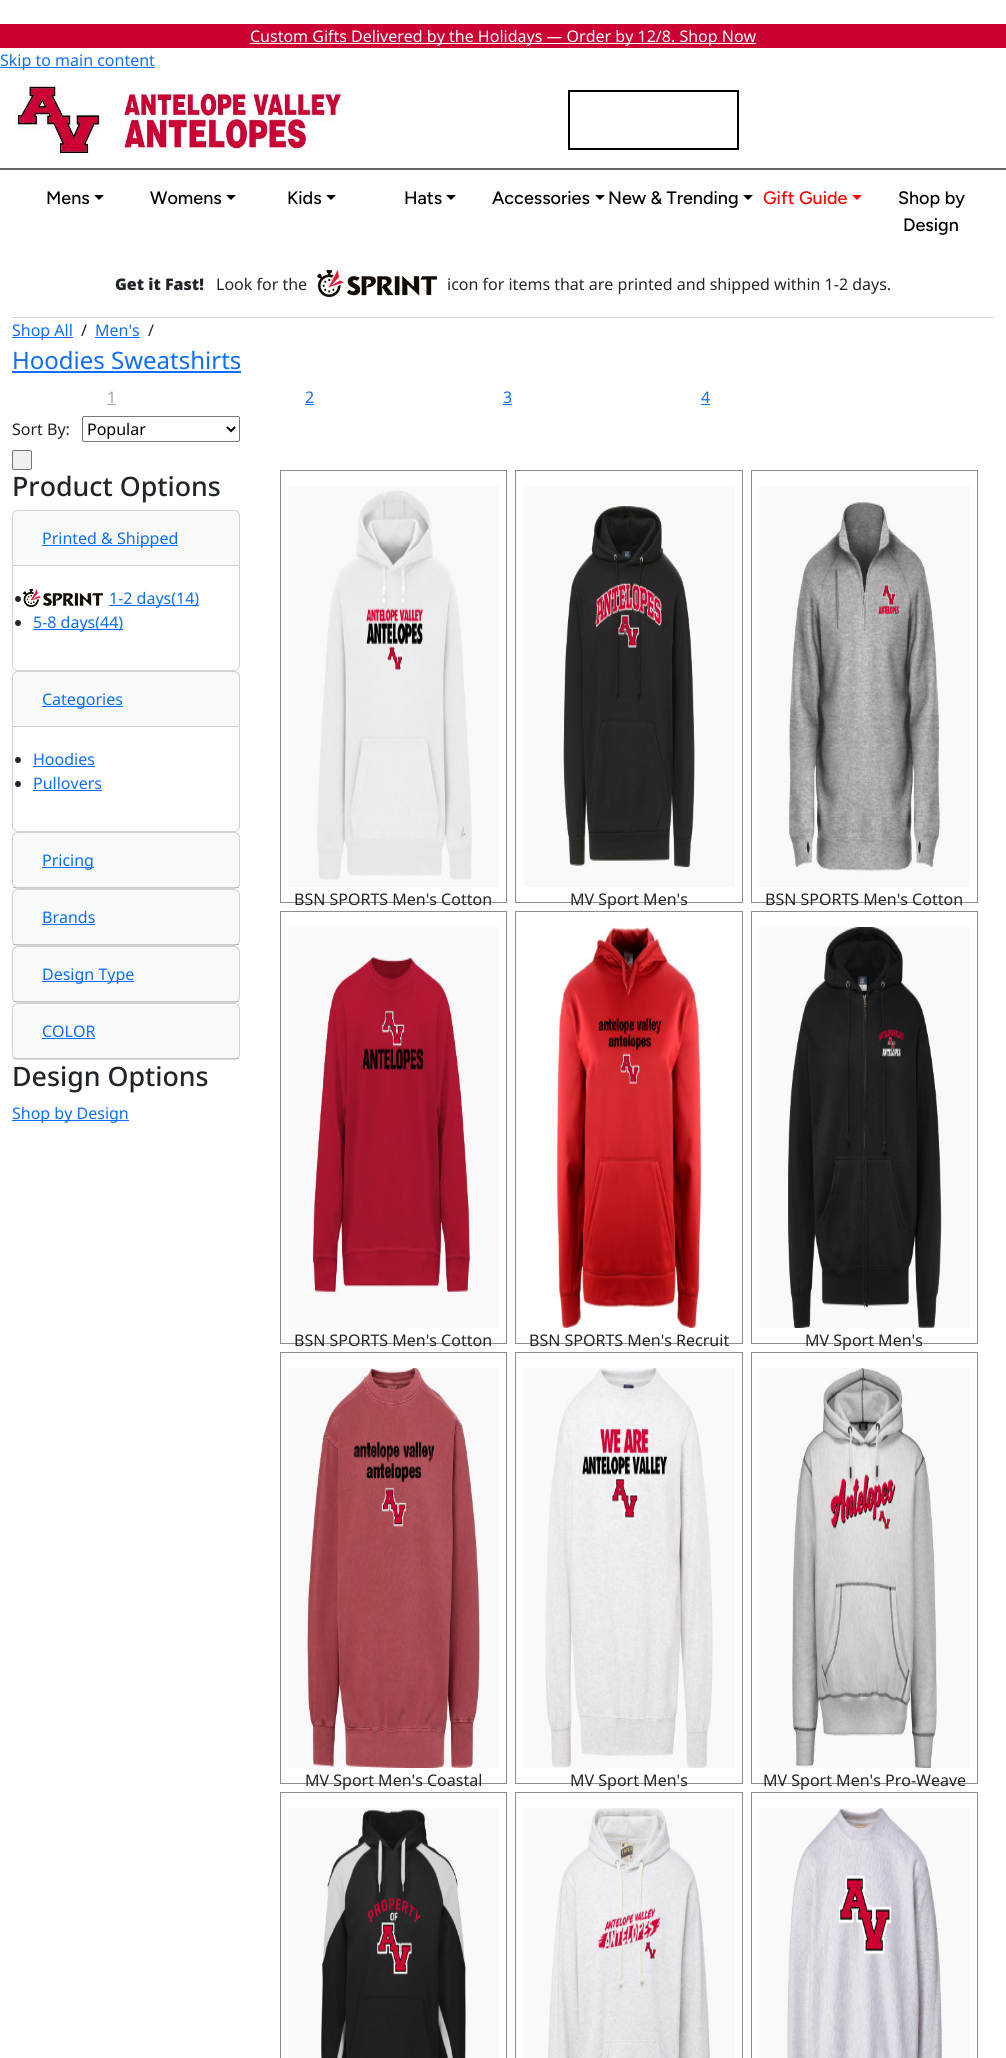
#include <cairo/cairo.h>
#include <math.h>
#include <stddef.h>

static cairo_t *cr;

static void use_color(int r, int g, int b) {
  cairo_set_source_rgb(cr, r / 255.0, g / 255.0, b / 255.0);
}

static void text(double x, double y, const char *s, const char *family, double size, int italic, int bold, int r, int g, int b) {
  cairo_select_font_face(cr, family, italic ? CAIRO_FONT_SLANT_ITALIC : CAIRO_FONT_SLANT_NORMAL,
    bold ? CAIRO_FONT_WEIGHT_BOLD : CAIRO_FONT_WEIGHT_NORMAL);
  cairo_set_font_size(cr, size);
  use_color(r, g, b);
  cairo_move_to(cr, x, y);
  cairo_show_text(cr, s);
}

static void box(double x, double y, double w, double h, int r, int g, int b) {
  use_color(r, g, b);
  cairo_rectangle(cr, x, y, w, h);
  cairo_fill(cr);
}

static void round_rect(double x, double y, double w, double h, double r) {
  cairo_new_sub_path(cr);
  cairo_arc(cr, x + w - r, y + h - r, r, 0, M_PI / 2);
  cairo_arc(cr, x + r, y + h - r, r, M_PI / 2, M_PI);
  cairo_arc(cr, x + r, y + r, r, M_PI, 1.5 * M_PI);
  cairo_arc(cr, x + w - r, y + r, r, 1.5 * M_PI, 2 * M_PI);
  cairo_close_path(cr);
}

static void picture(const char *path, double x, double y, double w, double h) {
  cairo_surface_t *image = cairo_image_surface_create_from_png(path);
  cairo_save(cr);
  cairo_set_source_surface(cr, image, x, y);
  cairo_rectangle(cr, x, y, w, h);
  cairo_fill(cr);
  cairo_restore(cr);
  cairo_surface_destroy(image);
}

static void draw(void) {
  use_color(255, 255, 255);
  cairo_paint(cr);
  box(0, 24, 1006, 24, 204, 0, 51);
  box(250, 43, 506, 1, 255, 255, 255);
  box(0, 67, 155, 1, 13, 110, 253);
  box(0, 168, 1006, 2, 97, 98, 98);
  picture("img_01.png", 15, 84, 326, 72);
  cairo_rectangle(cr, 569, 91, 169, 58);
  use_color(0, 0, 0);
  cairo_stroke(cr);
  cairo_new_path(cr);
  cairo_move_to(cr, 94, 195);
  cairo_line_to(cr, 104, 195);
  cairo_line_to(cr, 99, 200);
  cairo_close_path(cr);
  cairo_fill(cr);
  cairo_new_path(cr);
  cairo_move_to(cr, 226, 195);
  cairo_line_to(cr, 236, 195);
  cairo_line_to(cr, 231, 200);
  cairo_close_path(cr);
  cairo_fill(cr);
  cairo_new_path(cr);
  cairo_move_to(cr, 326, 195);
  cairo_line_to(cr, 336, 195);
  cairo_line_to(cr, 331, 200);
  cairo_close_path(cr);
  cairo_fill(cr);
  cairo_new_path(cr);
  cairo_move_to(cr, 446, 195);
  cairo_line_to(cr, 456, 195);
  cairo_line_to(cr, 451, 200);
  cairo_close_path(cr);
  cairo_fill(cr);
  cairo_new_path(cr);
  cairo_move_to(cr, 595, 195);
  cairo_line_to(cr, 605, 195);
  cairo_line_to(cr, 600, 200);
  cairo_close_path(cr);
  cairo_fill(cr);
  cairo_new_path(cr);
  cairo_move_to(cr, 743, 195);
  cairo_line_to(cr, 753, 195);
  cairo_line_to(cr, 748, 200);
  cairo_close_path(cr);
  cairo_fill(cr);
  use_color(255, 0, 0);
  cairo_new_path(cr);
  cairo_move_to(cr, 852, 195);
  cairo_line_to(cr, 862, 195);
  cairo_line_to(cr, 857, 200);
  cairo_close_path(cr);
  cairo_fill(cr);
  box(12, 317, 982, 1, 211, 211, 211);
  picture("img_02.png", 317, 270, 120, 27);
  box(12, 337, 61, 1, 13, 110, 253);
  box(95, 337, 45, 1, 13, 110, 253);
  box(12, 371, 229, 2, 13, 110, 253);
  box(107, 404, 9, 1, 159, 165, 171);
  box(305, 404, 9, 1, 13, 110, 253);
  box(503, 404, 9, 1, 13, 110, 253);
  box(701, 404, 9, 1, 13, 110, 253);
  round_rect(82.5, 416.5, 157, 25, 1.5);
  use_color(118, 118, 118);
  cairo_set_line_width(cr, 1);
  cairo_stroke(cr);
  cairo_new_path(cr);
  cairo_move_to(cr, 227, 427);
  cairo_line_to(cr, 231, 431);
  cairo_line_to(cr, 235, 427);
  use_color(0, 0, 0);
  cairo_set_line_width(cr, 2);
  cairo_stroke(cr);
  use_color(239, 239, 239);
  round_rect(12.5, 450.5, 19, 19, 1.5);
  cairo_fill_preserve(cr);
  use_color(118, 118, 118);
  cairo_set_line_width(cr, 1);
  cairo_stroke(cr);
  round_rect(12.5, 510.5, 227, 160, 5.5);
  use_color(210, 210, 210);
  cairo_stroke(cr);
  cairo_set_source_rgba(cr, 0.129, 0.145, 0.161, 0.03);
  cairo_rectangle(cr, 13, 511, 226, 54);
  cairo_fill(cr);
  box(13, 565, 226, 1, 205, 205, 205);
  box(42, 545, 136, 1, 13, 110, 253);
  use_color(33, 37, 41);
  cairo_arc(cr, 18, 599, 3, 0, 2 * M_PI);
  cairo_fill(cr);
  picture("img_03.png", 23, 589, 80, 18);
  box(109, 605, 90, 1, 13, 110, 253);
  use_color(33, 37, 41);
  cairo_arc(cr, 18, 623, 3, 0, 2 * M_PI);
  cairo_fill(cr);
  box(33, 629, 90, 1, 13, 110, 253);
  round_rect(12.5, 671.5, 227, 160, 5.5);
  use_color(210, 210, 210);
  cairo_stroke(cr);
  cairo_set_source_rgba(cr, 0.129, 0.145, 0.161, 0.03);
  cairo_rectangle(cr, 13, 672, 226, 54);
  cairo_fill(cr);
  box(13, 726, 226, 1, 205, 205, 205);
  box(42, 706, 81, 1, 13, 110, 253);
  use_color(33, 37, 41);
  cairo_arc(cr, 18, 760, 3, 0, 2 * M_PI);
  cairo_fill(cr);
  box(33, 766, 62, 1, 13, 110, 253);
  use_color(33, 37, 41);
  cairo_arc(cr, 18, 784, 3, 0, 2 * M_PI);
  cairo_fill(cr);
  box(33, 790, 69, 1, 13, 110, 253);
  round_rect(12.5, 832.5, 227, 56, 5.5);
  use_color(210, 210, 210);
  cairo_stroke(cr);
  cairo_set_source_rgba(cr, 0.129, 0.145, 0.161, 0.03);
  cairo_rectangle(cr, 13, 833, 226, 55);
  cairo_fill(cr);
  cairo_set_source_rgba(cr, 0, 0, 0, 0.18);
  cairo_rectangle(cr, 13, 887, 226, 1);
  cairo_fill(cr);
  box(42, 867, 52, 1, 13, 110, 253);
  round_rect(12.5, 889.5, 227, 56, 5.5);
  use_color(210, 210, 210);
  cairo_stroke(cr);
  cairo_set_source_rgba(cr, 0.129, 0.145, 0.161, 0.03);
  cairo_rectangle(cr, 13, 890, 226, 55);
  cairo_fill(cr);
  cairo_set_source_rgba(cr, 0, 0, 0, 0.18);
  cairo_rectangle(cr, 13, 944, 226, 1);
  cairo_fill(cr);
  box(42, 924, 53, 1, 13, 110, 253);
  round_rect(12.5, 946.5, 227, 56, 5.5);
  use_color(210, 210, 210);
  cairo_stroke(cr);
  cairo_set_source_rgba(cr, 0.129, 0.145, 0.161, 0.03);
  cairo_rectangle(cr, 13, 947, 226, 55);
  cairo_fill(cr);
  cairo_set_source_rgba(cr, 0, 0, 0, 0.18);
  cairo_rectangle(cr, 13, 1001, 226, 1);
  cairo_fill(cr);
  box(42, 981, 92, 1, 13, 110, 253);
  round_rect(12.5, 1003.5, 227, 56, 5.5);
  use_color(210, 210, 210);
  cairo_stroke(cr);
  cairo_set_source_rgba(cr, 0.129, 0.145, 0.161, 0.03);
  cairo_rectangle(cr, 13, 1004, 226, 55);
  cairo_fill(cr);
  cairo_set_source_rgba(cr, 0, 0, 0, 0.18);
  cairo_rectangle(cr, 13, 1058, 226, 1);
  cairo_fill(cr);
  box(42, 1038, 53, 1, 13, 110, 253);
  box(12, 1120, 117, 1, 13, 110, 253);
  cairo_rectangle(cr, 280.5, 470.5, 226, 432);
  use_color(140, 140, 140);
  cairo_stroke(cr);
  picture("img_04.png", 288, 486, 211, 401);
  cairo_rectangle(cr, 515.5, 470.5, 227, 432);
  cairo_stroke(cr);
  picture("img_05.png", 523, 486, 212, 401);
  cairo_rectangle(cr, 751.5, 470.5, 226, 432);
  cairo_stroke(cr);
  picture("img_06.png", 759, 486, 211, 401);
  cairo_rectangle(cr, 280.5, 911.5, 226, 432);
  cairo_stroke(cr);
  picture("img_07.png", 288, 927, 211, 401);
  cairo_rectangle(cr, 515.5, 911.5, 227, 432);
  cairo_stroke(cr);
  picture("img_08.png", 555, 927, 148, 401);
  cairo_rectangle(cr, 751.5, 911.5, 226, 432);
  cairo_stroke(cr);
  picture("img_09.png", 759, 927, 211, 401);
  cairo_rectangle(cr, 280.5, 1352.5, 226, 431);
  cairo_stroke(cr);
  picture("img_10.png", 288, 1368, 211, 400);
  cairo_rectangle(cr, 515.5, 1352.5, 227, 431);
  cairo_stroke(cr);
  picture("img_11.png", 523, 1368, 212, 400);
  cairo_rectangle(cr, 751.5, 1352.5, 226, 431);
  cairo_stroke(cr);
  picture("img_12.png", 759, 1368, 211, 400);
  cairo_rectangle(cr, 280.5, 1792.5, 226, 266);
  cairo_stroke(cr);
  picture("img_13.png", 288, 1808, 211, 250);
  cairo_rectangle(cr, 515.5, 1792.5, 227, 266);
  cairo_stroke(cr);
  picture("img_14.png", 523, 1808, 212, 250);
  cairo_rectangle(cr, 751.5, 1792.5, 226, 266);
  cairo_stroke(cr);
  picture("img_15.png", 759, 1808, 211, 250);
  text(250, 42, "Custom Gifts Delivered by the Holidays — Order by 12/8. Shop Now", "Noto Sans", 16, 0, 0, 255, 255, 255);
  text(0, 66, "Skip to main content", "Noto Sans", 16, 0, 0, 13, 110, 253);
  text(46, 204, "Mens", "Figtree Medium", 18, 0, 0, 0, 0, 0);
  text(150, 204, "Womens", "Figtree Medium", 18, 0, 0, 0, 0, 0);
  text(287, 204, "Kids", "Figtree Medium", 18, 0, 0, 0, 0, 0);
  text(404, 204, "Hats", "Figtree Medium", 18, 0, 0, 0, 0, 0);
  text(492, 204, "Accessories", "Figtree Medium", 18, 0, 0, 0, 0, 0);
  text(608, 204, "New & Trending", "Figtree Medium", 18, 0, 0, 0, 0, 0);
  text(763, 204, "Gift Guide", "Figtree Medium", 18, 0, 0, 255, 0, 0);
  text(898, 204, "Shop by", "Figtree Medium", 18, 0, 0, 0, 0, 0);
  text(903, 231, "Design", "Figtree Medium", 18, 0, 0, 0, 0, 0);
  text(115, 290, "Get it Fast!", "Noto Sans Black", 16, 0, 0, 33, 37, 41);
  text(216, 290, "Look for the", "Noto Sans", 16, 0, 0, 33, 37, 41);
  text(447, 290, "icon for items that are printed and shipped within 1-2 days.", "Noto Sans", 16, 0, 0, 33, 37, 41);
  text(12, 336, "Shop All", "Noto Sans", 16, 0, 0, 13, 110, 253);
  text(81, 336, "/", "Noto Sans", 16, 0, 0, 33, 37, 41);
  text(95, 336, "Men's", "Noto Sans", 16, 0, 0, 13, 110, 253);
  text(148, 336, "/", "Noto Sans", 16, 0, 0, 33, 37, 41);
  text(12, 369, "Hoodies Sweatshirts", "Noto Sans", 24, 0, 0, 13, 110, 253);
  text(107, 403, "1", "Noto Sans", 16, 0, 0, 159, 165, 171);
  text(305, 403, "2", "Noto Sans", 16, 0, 0, 13, 110, 253);
  text(503, 403, "3", "Noto Sans", 16, 0, 0, 13, 110, 253);
  text(701, 403, "4", "Noto Sans", 16, 0, 0, 13, 110, 253);
  text(12, 435, "Sort By:", "Noto Sans", 16, 0, 0, 33, 37, 41);
  text(87, 435, "Popular", "Noto Sans", 16, 0, 0, 0, 0, 0);
  text(12, 496, "Product Options", "Noto Sans Medium", 26.75, 0, 0, 33, 37, 41);
  text(42, 544, "Printed & Shipped", "Noto Sans", 16, 0, 0, 13, 110, 253);
  text(109, 604, "1-2 days(14)", "Noto Sans", 16, 0, 0, 13, 110, 253);
  text(33, 628, "5-8 days(44)", "Noto Sans", 16, 0, 0, 13, 110, 253);
  text(42, 705, "Categories", "Noto Sans", 16, 0, 0, 13, 110, 253);
  text(33, 765, "Hoodies", "Noto Sans", 16, 0, 0, 13, 110, 253);
  text(33, 789, "Pullovers", "Noto Sans", 16, 0, 0, 13, 110, 253);
  text(42, 866, "Pricing", "Noto Sans", 16, 0, 0, 13, 110, 253);
  text(42, 923, "Brands", "Noto Sans", 16, 0, 0, 13, 110, 253);
  text(42, 980, "Design Type", "Noto Sans", 16, 0, 0, 13, 110, 253);
  text(42, 1037, "COLOR", "Noto Sans", 16, 0, 0, 13, 110, 253);
  text(12, 1086, "Design Options", "Noto Sans Medium", 26.75, 0, 0, 33, 37, 41);
  text(12, 1119, "Shop by Design", "Noto Sans", 16, 0, 0, 13, 110, 253);
  text(294, 905, "BSN SPORTS Men's Cotton", "Noto Sans", 16, 0, 0, 33, 37, 41);
  text(570, 905, "MV Sport Men's", "Noto Sans", 16, 0, 0, 33, 37, 41);
  text(765, 905, "BSN SPORTS Men's Cotton", "Noto Sans", 16, 0, 0, 33, 37, 41);
  text(294, 1346, "BSN SPORTS Men's Cotton", "Noto Sans", 16, 0, 0, 33, 37, 41);
  text(529, 1346, "BSN SPORTS Men's Recruit", "Noto Sans", 16, 0, 0, 33, 37, 41);
  text(805, 1346, "MV Sport Men's", "Noto Sans", 16, 0, 0, 33, 37, 41);
  text(305, 1786, "MV Sport Men's Coastal", "Noto Sans", 16, 0, 0, 33, 37, 41);
  text(570, 1786, "MV Sport Men's", "Noto Sans", 16, 0, 0, 33, 37, 41);
  text(763, 1786, "MV Sport Men's Pro-Weave", "Noto Sans", 16, 0, 0, 33, 37, 41);
}

int main(void) {
  cairo_surface_t *surface = cairo_image_surface_create(CAIRO_FORMAT_RGB24, 1006, 2058);
  cr = cairo_create(surface);
  cairo_font_options_t *options = cairo_font_options_create();
  cairo_font_options_set_hint_metrics(options, CAIRO_HINT_METRICS_OFF);
  cairo_font_options_set_hint_style(options, CAIRO_HINT_STYLE_NONE);
  cairo_set_font_options(cr, options);
  cairo_set_miter_limit(cr, 4);
  draw();
  cairo_surface_write_to_png(surface, "out.png");
  cairo_font_options_destroy(options);
  cairo_destroy(cr);
  cairo_surface_destroy(surface);
  return 0;
}
